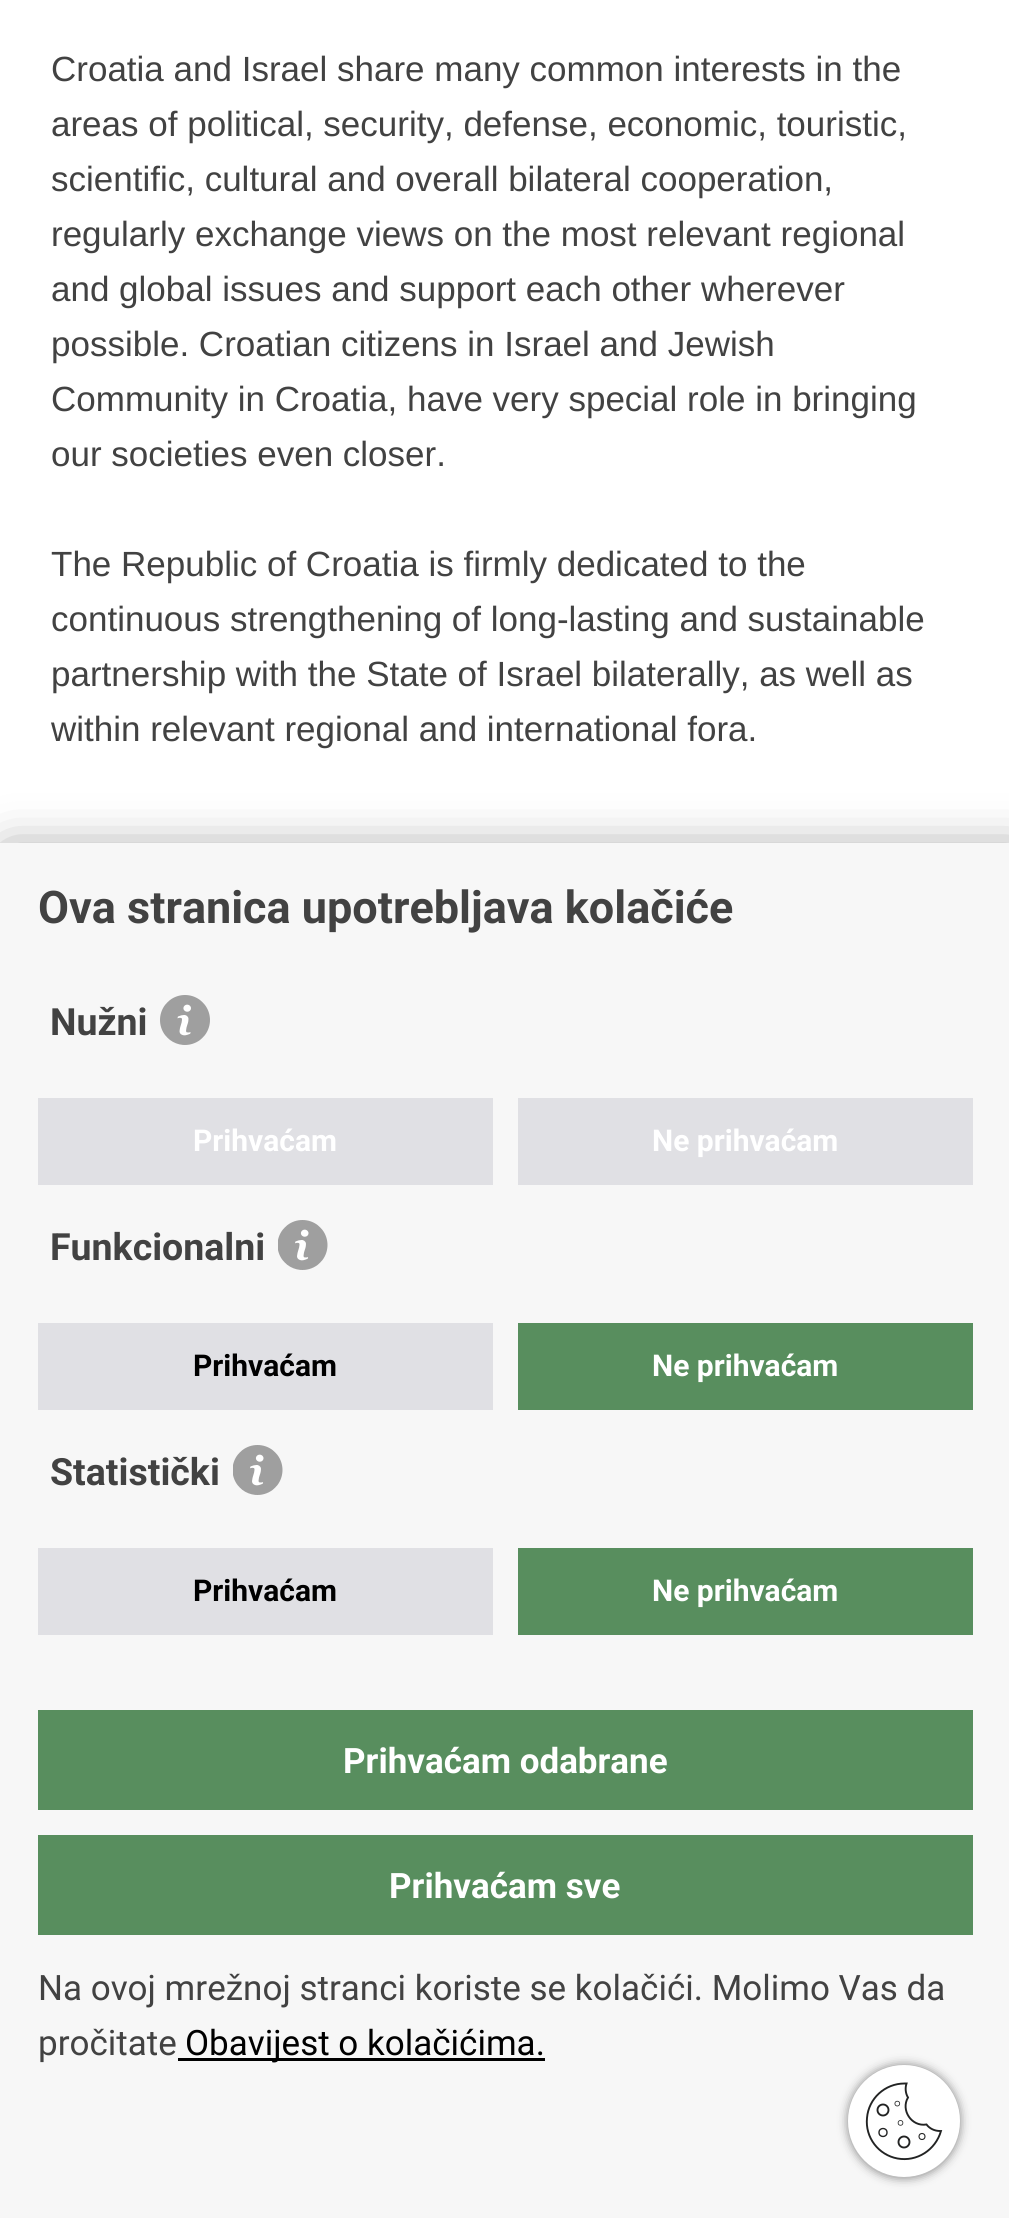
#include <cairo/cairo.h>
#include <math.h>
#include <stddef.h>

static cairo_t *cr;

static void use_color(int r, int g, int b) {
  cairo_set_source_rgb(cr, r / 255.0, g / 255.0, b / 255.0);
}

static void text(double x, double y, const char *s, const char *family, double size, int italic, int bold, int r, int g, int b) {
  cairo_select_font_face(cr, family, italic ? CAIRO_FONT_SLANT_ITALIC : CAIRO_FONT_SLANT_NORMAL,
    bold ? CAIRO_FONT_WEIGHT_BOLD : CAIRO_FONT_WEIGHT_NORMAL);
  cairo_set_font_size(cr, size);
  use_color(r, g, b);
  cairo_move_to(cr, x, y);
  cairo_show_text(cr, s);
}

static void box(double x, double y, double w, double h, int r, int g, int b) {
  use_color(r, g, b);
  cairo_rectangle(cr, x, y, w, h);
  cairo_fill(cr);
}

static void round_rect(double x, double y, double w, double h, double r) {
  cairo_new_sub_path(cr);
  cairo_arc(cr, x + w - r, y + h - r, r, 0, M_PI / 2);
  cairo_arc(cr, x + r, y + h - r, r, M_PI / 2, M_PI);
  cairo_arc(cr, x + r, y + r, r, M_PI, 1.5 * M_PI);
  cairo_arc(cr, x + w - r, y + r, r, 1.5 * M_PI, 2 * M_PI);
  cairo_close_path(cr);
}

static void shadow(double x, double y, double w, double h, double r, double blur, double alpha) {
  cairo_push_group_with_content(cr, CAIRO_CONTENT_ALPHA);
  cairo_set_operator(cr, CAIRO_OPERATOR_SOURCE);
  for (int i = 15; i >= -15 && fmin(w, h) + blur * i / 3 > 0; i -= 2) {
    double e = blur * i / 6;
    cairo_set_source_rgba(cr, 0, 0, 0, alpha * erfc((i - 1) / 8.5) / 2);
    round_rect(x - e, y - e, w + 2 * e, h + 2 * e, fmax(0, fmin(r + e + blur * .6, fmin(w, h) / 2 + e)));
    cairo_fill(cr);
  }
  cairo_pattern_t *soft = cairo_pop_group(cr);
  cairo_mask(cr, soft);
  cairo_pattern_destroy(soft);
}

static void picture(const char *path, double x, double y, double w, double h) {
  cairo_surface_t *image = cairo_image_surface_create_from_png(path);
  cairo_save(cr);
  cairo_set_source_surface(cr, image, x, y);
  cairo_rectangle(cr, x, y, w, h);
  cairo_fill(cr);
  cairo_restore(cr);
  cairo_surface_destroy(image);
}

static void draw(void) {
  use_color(255, 255, 255);
  cairo_paint(cr);
  use_color(0, 0, 0);
  shadow(8, 855, 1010, 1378, 0, 25, 0.5);
  box(0, 843, 1009, 1375, 247, 247, 247);
  picture("img_01.png", 160, 995, 50, 50);
  box(38, 1098, 455, 87, 224, 224, 228);
  box(518, 1098, 455, 87, 224, 224, 228);
  picture("img_02.png", 278, 1220, 50, 50);
  box(38, 1323, 455, 87, 224, 224, 228);
  box(518, 1323, 455, 87, 88, 142, 94);
  picture("img_02.png", 233, 1445, 50, 50);
  box(38, 1548, 455, 87, 224, 224, 228);
  box(518, 1548, 455, 87, 88, 142, 94);
  box(38, 1710, 935, 100, 88, 142, 94);
  box(38, 1835, 935, 100, 88, 142, 94);
  box(178, 2058, 367, 3, 0, 0, 0);
  use_color(133, 133, 133);
  shadow(848, 2065, 112, 113, 56, 5, 1);
  use_color(255, 255, 255);
  cairo_arc(cr, 904, 2121, 56, 0, 2 * M_PI);
  cairo_fill(cr);
  cairo_new_path(cr);
  cairo_move_to(cr, 940, 2131);
  cairo_curve_to(cr, 934.5, 2131, 929.5, 2128.5, 926.5, 2124.5);
  cairo_curve_to(cr, 911.5, 2127, 900.5, 2110, 908, 2097.5);
  cairo_curve_to(cr, 905.5, 2093.5, 905, 2088, 906.5, 2083.5);
  cairo_line_to(cr, 904.5, 2083.5);
  cairo_curve_to(cr, 885, 2083.5, 868.5, 2098.5, 867, 2118);
  cairo_curve_to(cr, 865, 2137.5, 878.5, 2155, 897.5, 2158.5);
  cairo_curve_to(cr, 917, 2162, 935.5, 2150, 941, 2131);
  cairo_close_path(cr);
  use_color(34, 35, 35);
  cairo_set_line_width(cr, 1.9);
  cairo_stroke(cr);
  cairo_arc(cr, 883, 2110, 5.5, 0, 2 * M_PI);
  cairo_stroke(cr);
  cairo_arc(cr, 904, 2142, 5.5, 0, 2 * M_PI);
  cairo_stroke(cr);
  cairo_arc(cr, 883, 2132.5, 4, 0, 2 * M_PI);
  cairo_set_line_width(cr, 1.4);
  cairo_stroke(cr);
  cairo_arc(cr, 922, 2136.5, 3, 0, 2 * M_PI);
  cairo_set_line_width(cr, 1.1);
  cairo_stroke(cr);
  cairo_arc(cr, 900.5, 2122.9, 2.4, 0, 2 * M_PI);
  cairo_set_line_width(cr, 0.8);
  cairo_stroke(cr);
  cairo_arc(cr, 897.3, 2103.6, 2.4, 0, 2 * M_PI);
  cairo_stroke(cr);
  text(51, 81, "Croatia and Israel share many common interests in the", "Liberation Sans", 35, 0, 0, 66, 66, 66);
  text(51, 136, "areas of political, security, defense, economic, touristic,", "Liberation Sans", 35, 0, 0, 66, 66, 66);
  text(51, 191, "scientific, cultural and overall bilateral cooperation,", "Liberation Sans", 35, 0, 0, 66, 66, 66);
  text(51, 246, "regularly exchange views on the most relevant regional", "Liberation Sans", 35, 0, 0, 66, 66, 66);
  text(51, 301, "and global issues and support each other wherever", "Liberation Sans", 35, 0, 0, 66, 66, 66);
  text(51, 356, "possible. Croatian citizens in Israel and Jewish", "Liberation Sans", 35, 0, 0, 66, 66, 66);
  text(51, 411, "Community in Croatia, have very special role in bringing", "Liberation Sans", 35, 0, 0, 66, 66, 66);
  text(51, 466, "our societies even closer.", "Liberation Sans", 35, 0, 0, 66, 66, 66);
  text(51, 576, "The Republic of Croatia is firmly dedicated to the", "Liberation Sans", 35, 0, 0, 66, 66, 66);
  text(51, 631, "continuous strengthening of long-lasting and sustainable", "Liberation Sans", 35, 0, 0, 66, 66, 66);
  text(51, 686, "partnership with the State of Israel bilaterally, as well as", "Liberation Sans", 35, 0, 0, 66, 66, 66);
  text(51, 741, "within relevant regional and international fora.", "Liberation Sans", 35, 0, 0, 66, 66, 66);
  text(38, 923, "Ova stranica upotrebljava kolačiće", "Roboto", 45, 0, 1, 66, 66, 66);
  text(50, 1035, "Nužni", "Roboto", 37.5, 0, 1, 66, 66, 66);
  text(193, 1151, "Prihvaćam", "Roboto", 30, 0, 1, 255, 255, 255);
  text(652, 1151, "Ne prihvaćam", "Roboto", 30, 0, 1, 255, 255, 255);
  text(50, 1260, "Funkcionalni", "Roboto", 37.5, 0, 1, 66, 66, 66);
  text(193, 1376, "Prihvaćam", "Roboto", 30, 0, 1, 0, 0, 0);
  text(652, 1376, "Ne prihvaćam", "Roboto", 30, 0, 1, 255, 255, 255);
  text(50, 1485, "Statistički", "Roboto", 37.5, 0, 1, 66, 66, 66);
  text(193, 1601, "Prihvaćam", "Roboto", 30, 0, 1, 0, 0, 0);
  text(652, 1601, "Ne prihvaćam", "Roboto", 30, 0, 1, 255, 255, 255);
  text(343, 1773, "Prihvaćam odabrane", "Roboto", 35, 0, 1, 255, 255, 255);
  text(389, 1898, "Prihvaćam sve", "Roboto", 35, 0, 1, 255, 255, 255);
  text(38, 2000, "Na ovoj mrežnoj stranci koriste se kolačići. Molimo Vas da", "Roboto", 35, 0, 0, 66, 66, 66);
  text(38, 2055, "pročitate", "Roboto", 35, 0, 0, 66, 66, 66);
  text(185, 2055, "Obavijest o kolačićima.", "Roboto", 35, 0, 0, 0, 0, 0);
}

int main(void) {
  cairo_surface_t *surface = cairo_image_surface_create(CAIRO_FORMAT_RGB24, 1009, 2218);
  cr = cairo_create(surface);
  cairo_font_options_t *options = cairo_font_options_create();
  cairo_font_options_set_hint_metrics(options, CAIRO_HINT_METRICS_OFF);
  cairo_font_options_set_hint_style(options, CAIRO_HINT_STYLE_NONE);
  cairo_set_font_options(cr, options);
  cairo_set_miter_limit(cr, 4);
  draw();
  cairo_surface_write_to_png(surface, "out.png");
  cairo_font_options_destroy(options);
  cairo_destroy(cr);
  cairo_surface_destroy(surface);
  return 0;
}
